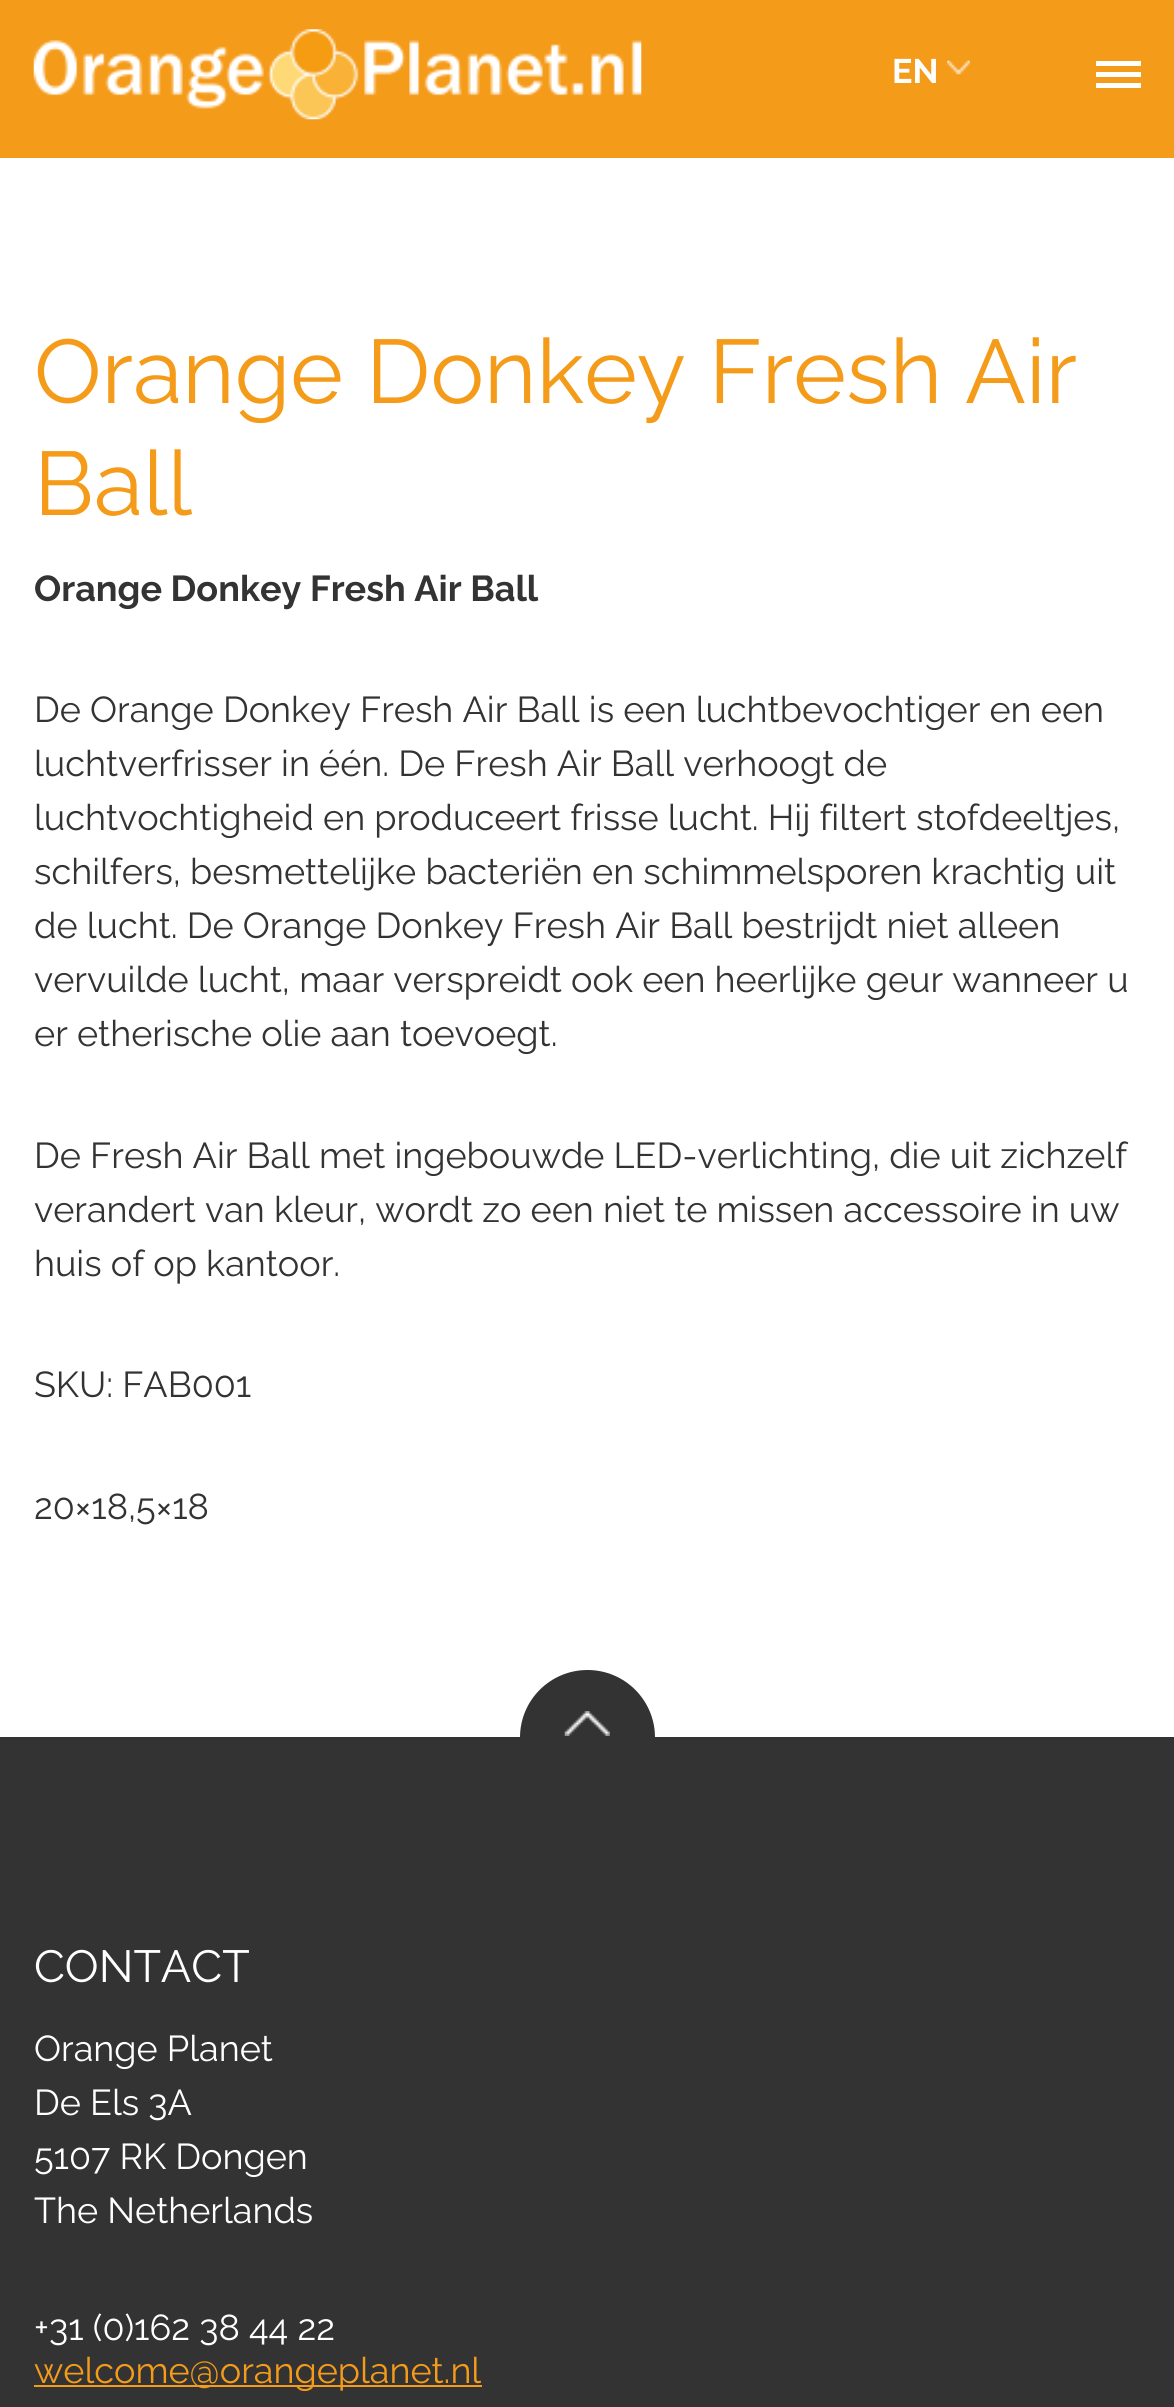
#include <cairo/cairo.h>
#include <math.h>
#include <stddef.h>

static cairo_t *cr;

static void use_color(int r, int g, int b) {
  cairo_set_source_rgb(cr, r / 255.0, g / 255.0, b / 255.0);
}

static void text(double x, double y, const char *s, const char *family, double size, int italic, int bold, int r, int g, int b) {
  cairo_select_font_face(cr, family, italic ? CAIRO_FONT_SLANT_ITALIC : CAIRO_FONT_SLANT_NORMAL,
    bold ? CAIRO_FONT_WEIGHT_BOLD : CAIRO_FONT_WEIGHT_NORMAL);
  cairo_set_font_size(cr, size);
  use_color(r, g, b);
  cairo_move_to(cr, x, y);
  cairo_show_text(cr, s);
}

static void box(double x, double y, double w, double h, int r, int g, int b) {
  use_color(r, g, b);
  cairo_rectangle(cr, x, y, w, h);
  cairo_fill(cr);
}

static void picture(const char *path, double x, double y, double w, double h) {
  cairo_surface_t *image = cairo_image_surface_create_from_png(path);
  cairo_save(cr);
  cairo_set_source_surface(cr, image, x, y);
  cairo_rectangle(cr, x, y, w, h);
  cairo_fill(cr);
  cairo_restore(cr);
  cairo_surface_destroy(image);
}

static void draw(void) {
  use_color(255, 255, 255);
  cairo_paint(cr);
  box(0, 0, 1174, 158, 245, 155, 26);
  picture("img_01.png", 33, 29, 609, 91);
  picture("img_02.png", 947, 60, 23, 15);
  box(1096, 83, 45, 5, 255, 255, 255);
  box(1096, 61, 45, 5, 255, 255, 255);
  box(1096, 72, 45, 5, 255, 255, 255);
  box(0, 1737, 1174, 670, 51, 51, 51);
  cairo_arc(cr, 587.5, 1737.5, 67.5, 0, 2 * M_PI);
  cairo_fill(cr);
  picture("img_03.png", 564, 1711, 46, 25);
  box(34, 2385, 448, 2, 245, 155, 26);
  text(892, 83, "EN", "Raleway", 34, 0, 1, 255, 255, 255);
  text(34, 403, "Orange Donkey Fresh Air", "Raleway", 90, 0, 0, 245, 155, 26);
  text(34, 515, "Ball", "Raleway", 90, 0, 0, 245, 155, 26);
  text(34, 601, "Orange Donkey Fresh Air Ball", "Raleway", 36, 0, 1, 51, 51, 51);
  text(34, 722, "De Orange Donkey Fresh Air Ball is een luchtbevochtiger en een", "Raleway", 36, 0, 0, 51, 51, 51);
  text(34, 776, "luchtverfrisser in één. De Fresh Air Ball verhoogt de", "Raleway", 36, 0, 0, 51, 51, 51);
  text(34, 830, "luchtvochtigheid en produceert frisse lucht. Hij filtert stofdeeltjes,", "Raleway", 36, 0, 0, 51, 51, 51);
  text(34, 884, "schilfers, besmettelijke bacteriën en schimmelsporen krachtig uit", "Raleway", 36, 0, 0, 51, 51, 51);
  text(34, 938, "de lucht. De Orange Donkey Fresh Air Ball bestrijdt niet alleen", "Raleway", 36, 0, 0, 51, 51, 51);
  text(34, 992, "vervuilde lucht, maar verspreidt ook een heerlijke geur wanneer u", "Raleway", 36, 0, 0, 51, 51, 51);
  text(34, 1046, "er etherische olie aan toevoegt.", "Raleway", 36, 0, 0, 51, 51, 51);
  text(34, 1168, "De Fresh Air Ball met ingebouwde LED-verlichting, die uit zichzelf", "Raleway", 36, 0, 0, 51, 51, 51);
  text(34, 1222, "verandert van kleur, wordt zo een niet te missen accessoire in uw", "Raleway", 36, 0, 0, 51, 51, 51);
  text(34, 1276, "huis of op kantoor.", "Raleway", 36, 0, 0, 51, 51, 51);
  text(34, 1397, "SKU: FAB001", "Raleway", 36, 0, 0, 51, 51, 51);
  text(34, 1519, "20×18,5×18", "Raleway", 36, 0, 0, 51, 51, 51);
  text(34, 1982, "CONTACT", "Raleway", 45, 0, 0, 255, 255, 255);
  text(34, 2061, "Orange Planet", "Raleway", 36, 0, 0, 255, 255, 255);
  text(34, 2115, "De Els 3A", "Raleway", 36, 0, 0, 255, 255, 255);
  text(34, 2169, "5107 RK Dongen", "Raleway", 36, 0, 0, 255, 255, 255);
  text(34, 2223, "The Netherlands", "Raleway", 36, 0, 0, 255, 255, 255);
  text(34, 2340, "+31 (0)162 38 44 22", "Raleway", 36, 0, 0, 255, 255, 255);
  text(34, 2383, "welcome@orangeplanet.nl", "Raleway", 36, 0, 0, 245, 155, 26);
}

int main(void) {
  cairo_surface_t *surface = cairo_image_surface_create(CAIRO_FORMAT_RGB24, 1174, 2407);
  cr = cairo_create(surface);
  cairo_font_options_t *options = cairo_font_options_create();
  cairo_font_options_set_hint_metrics(options, CAIRO_HINT_METRICS_OFF);
  cairo_font_options_set_hint_style(options, CAIRO_HINT_STYLE_NONE);
  cairo_set_font_options(cr, options);
  cairo_set_miter_limit(cr, 4);
  draw();
  cairo_surface_write_to_png(surface, "out.png");
  cairo_font_options_destroy(options);
  cairo_destroy(cr);
  cairo_surface_destroy(surface);
  return 0;
}
